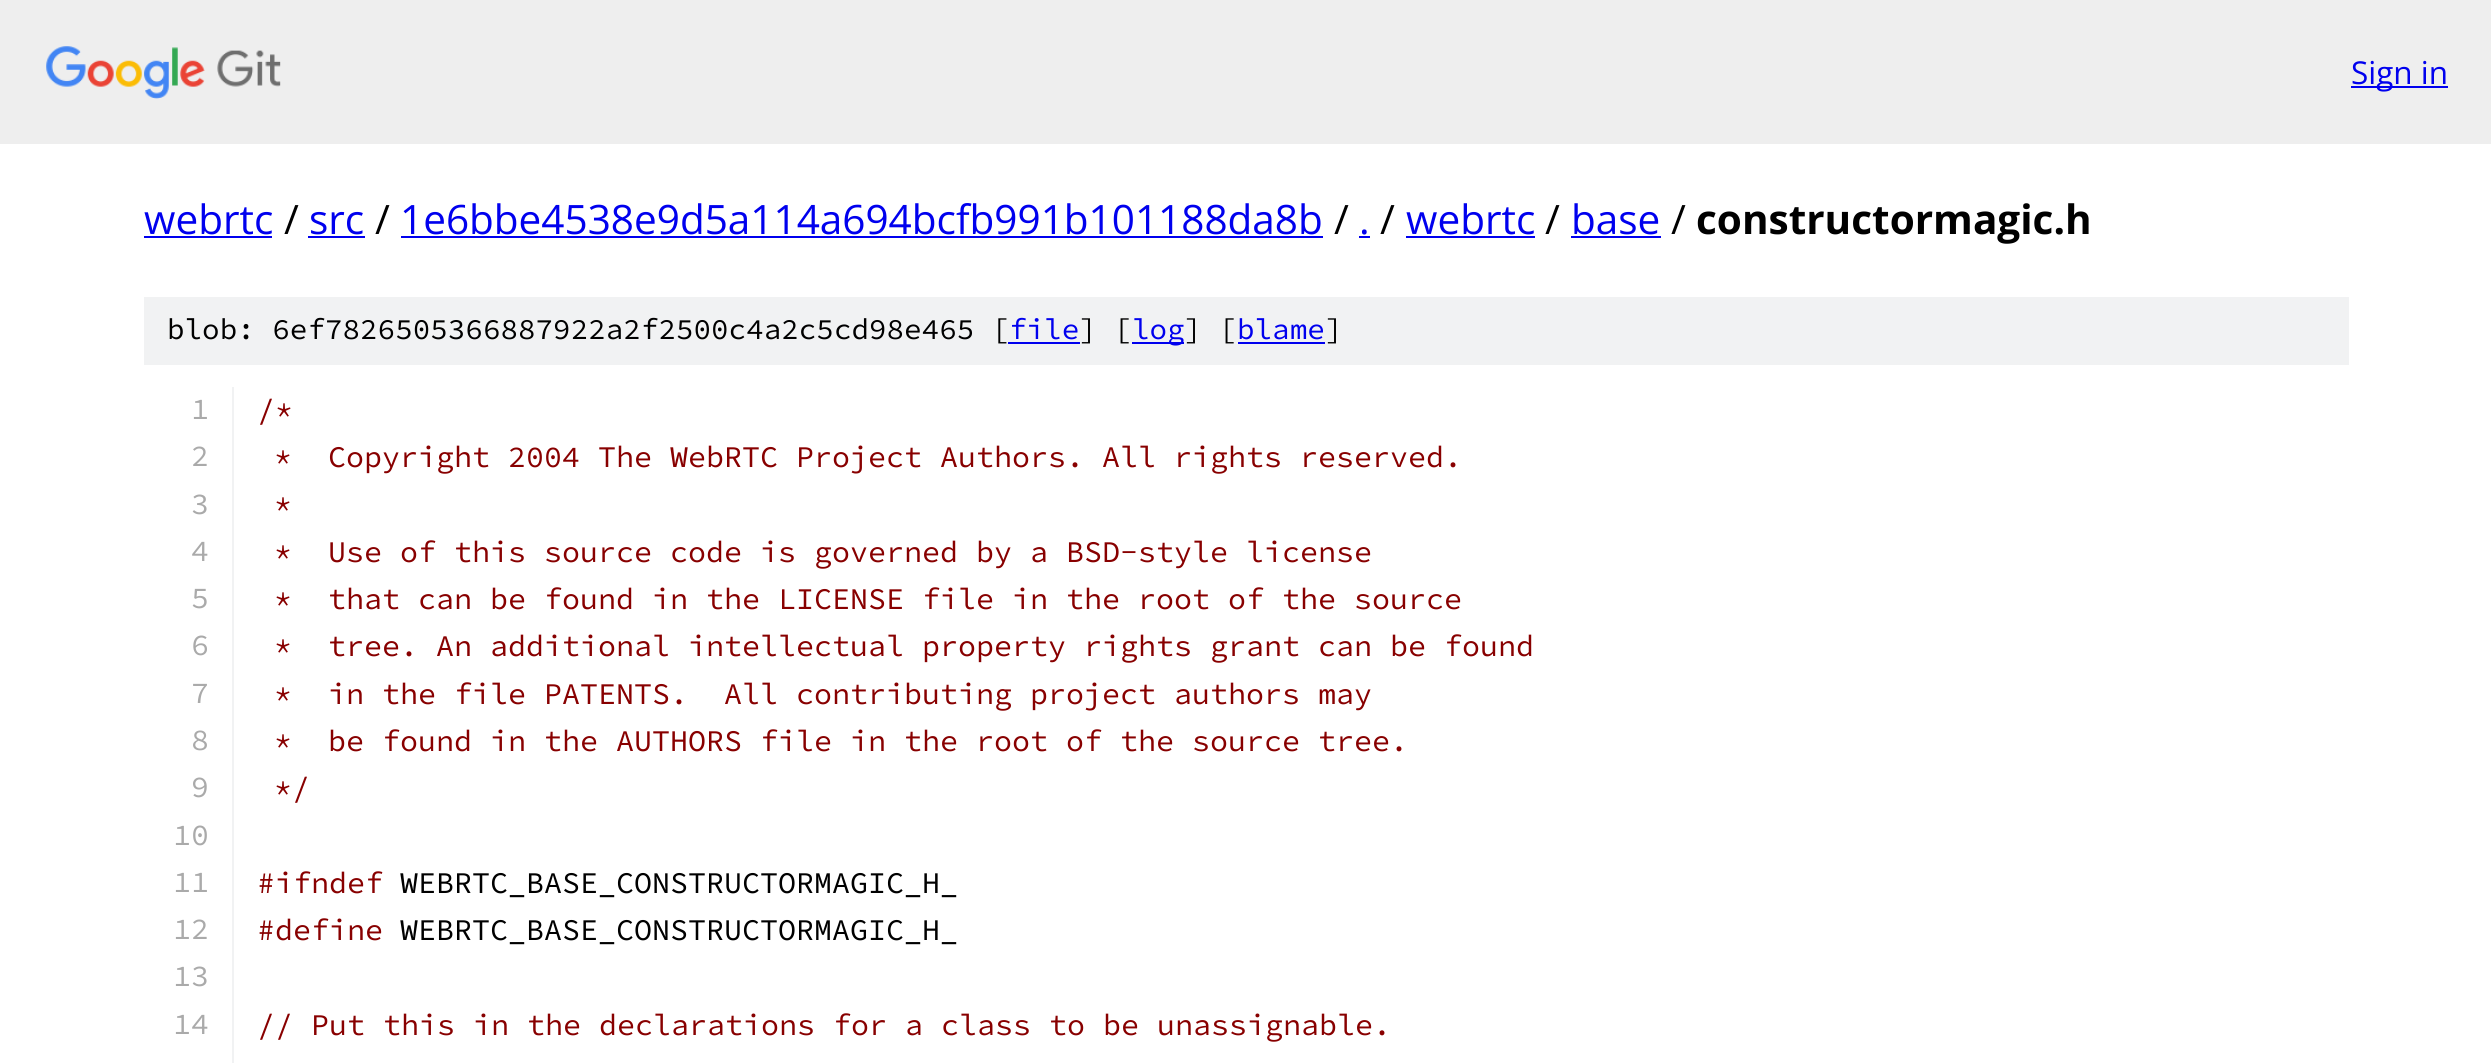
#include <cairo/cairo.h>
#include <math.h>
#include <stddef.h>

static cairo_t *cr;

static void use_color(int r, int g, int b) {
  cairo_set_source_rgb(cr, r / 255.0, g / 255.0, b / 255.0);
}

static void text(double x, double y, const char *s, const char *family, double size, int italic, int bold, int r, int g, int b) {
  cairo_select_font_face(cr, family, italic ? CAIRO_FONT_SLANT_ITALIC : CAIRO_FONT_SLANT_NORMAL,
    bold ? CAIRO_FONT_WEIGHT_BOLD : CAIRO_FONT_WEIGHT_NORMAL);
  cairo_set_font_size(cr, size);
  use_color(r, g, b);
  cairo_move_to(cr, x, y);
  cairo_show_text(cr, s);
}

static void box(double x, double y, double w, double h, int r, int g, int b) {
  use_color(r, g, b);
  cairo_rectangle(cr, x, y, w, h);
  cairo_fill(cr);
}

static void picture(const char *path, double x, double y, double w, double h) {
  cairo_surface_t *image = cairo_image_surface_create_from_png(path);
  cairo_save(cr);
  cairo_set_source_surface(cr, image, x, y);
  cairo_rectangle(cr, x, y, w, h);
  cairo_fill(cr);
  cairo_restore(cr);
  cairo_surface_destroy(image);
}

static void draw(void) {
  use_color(255, 255, 255);
  cairo_paint(cr);
  box(0, 0, 2491, 144, 238, 238, 238);
  picture("img_01.png", 46, 46, 235, 53);
  box(2351, 86, 97, 2, 0, 0, 238);
  box(144, 236, 128, 2, 0, 0, 238);
  box(308, 236, 57, 2, 0, 0, 238);
  box(401, 236, 922, 2, 0, 0, 238);
  box(1359, 236, 11, 2, 0, 0, 238);
  box(1406, 236, 129, 2, 0, 0, 238);
  box(1571, 236, 90, 2, 0, 0, 238);
  box(144, 297, 2205, 68, 241, 242, 243);
  box(1008, 342, 72, 2, 0, 0, 238);
  box(1132, 342, 52, 2, 0, 0, 238);
  box(1238, 342, 87, 2, 0, 0, 238);
  box(232, 387, 2, 676, 241, 242, 243);
  text(2351, 84, "Sign in", "Open Sans", 31.5, 0, 0, 0, 0, 238);
  text(144, 234, "webrtc", "Open Sans", 40.5, 0, 0, 0, 0, 238);
  text(284, 234, "/", "Open Sans", 40.5, 0, 0, 0, 0, 0);
  text(309, 234, "src", "Open Sans", 40.5, 0, 0, 0, 0, 238);
  text(375, 234, "/", "Open Sans", 40.5, 0, 0, 0, 0, 0);
  text(400, 234, "1e6bbe4538e9d5a114a694bcfb991b101188da8b", "Open Sans", 40.5, 0, 0, 0, 0, 238);
  text(1334, 234, "/", "Open Sans", 40.5, 0, 0, 0, 0, 0);
  text(1359, 234, ".", "Open Sans", 40.5, 0, 0, 0, 0, 238);
  text(1380, 234, "/", "Open Sans", 40.5, 0, 0, 0, 0, 0);
  text(1406, 234, "webrtc", "Open Sans", 40.5, 0, 0, 0, 0, 238);
  text(1545, 234, "/", "Open Sans", 40.5, 0, 0, 0, 0, 0);
  text(1571, 234, "base", "Open Sans", 40.5, 0, 0, 0, 0, 238);
  text(1671, 234, "/", "Open Sans", 40.5, 0, 0, 0, 0, 0);
  text(1696, 234, "constructormagic.h", "Open Sans", 40.5, 0, 1, 0, 0, 0);
  text(167, 339, "blob: 6ef7826505366887922a2f2500c4a2c5cd98e465 [", "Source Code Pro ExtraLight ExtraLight", 29.25, 0, 0, 0, 0, 0);
  text(1009, 339, "file", "Source Code Pro ExtraLight ExtraLight", 29.25, 0, 0, 0, 0, 238);
  text(1079, 339, "] [", "Source Code Pro ExtraLight ExtraLight", 29.25, 0, 0, 0, 0, 0);
  text(1132, 339, "log", "Source Code Pro ExtraLight ExtraLight", 29.25, 0, 0, 0, 0, 238);
  text(1184, 339, "] [", "Source Code Pro ExtraLight ExtraLight", 29.25, 0, 0, 0, 0, 0);
  text(1237, 339, "blame", "Source Code Pro ExtraLight ExtraLight", 29.25, 0, 0, 0, 0, 238);
  text(1325, 339, "]", "Source Code Pro ExtraLight ExtraLight", 29.25, 0, 0, 0, 0, 0);
  text(191, 419, "1", "Source Code Pro ExtraLight ExtraLight", 30, 0, 0, 170, 170, 170);
  text(257, 420, "/*", "Source Code Pro ExtraLight ExtraLight", 30, 0, 0, 136, 0, 0);
  text(191, 466, "2", "Source Code Pro ExtraLight ExtraLight", 30, 0, 0, 170, 170, 170);
  text(274, 467, "*  Copyright 2004 The WebRTC Project Authors. All rights reserved.", "Source Code Pro ExtraLight ExtraLight", 30, 0, 0, 136, 0, 0);
  text(191, 514, "3", "Source Code Pro ExtraLight ExtraLight", 30, 0, 0, 170, 170, 170);
  text(274, 514, "*", "Source Code Pro ExtraLight ExtraLight", 30, 0, 0, 136, 0, 0);
  text(191, 561, "4", "Source Code Pro ExtraLight ExtraLight", 30, 0, 0, 170, 170, 170);
  text(274, 562, "*  Use of this source code is governed by a BSD-style license", "Source Code Pro ExtraLight ExtraLight", 30, 0, 0, 136, 0, 0);
  text(191, 608, "5", "Source Code Pro ExtraLight ExtraLight", 30, 0, 0, 170, 170, 170);
  text(274, 609, "*  that can be found in the LICENSE file in the root of the source", "Source Code Pro ExtraLight ExtraLight", 30, 0, 0, 136, 0, 0);
  text(191, 655, "6", "Source Code Pro ExtraLight ExtraLight", 30, 0, 0, 170, 170, 170);
  text(274, 656, "*  tree. An additional intellectual property rights grant can be found", "Source Code Pro ExtraLight ExtraLight", 30, 0, 0, 136, 0, 0);
  text(191, 703, "7", "Source Code Pro ExtraLight ExtraLight", 30, 0, 0, 170, 170, 170);
  text(274, 704, "*  in the file PATENTS.  All contributing project authors may", "Source Code Pro ExtraLight ExtraLight", 30, 0, 0, 136, 0, 0);
  text(191, 750, "8", "Source Code Pro ExtraLight ExtraLight", 30, 0, 0, 170, 170, 170);
  text(274, 751, "*  be found in the AUTHORS file in the root of the source tree.", "Source Code Pro ExtraLight ExtraLight", 30, 0, 0, 136, 0, 0);
  text(191, 797, "9", "Source Code Pro ExtraLight ExtraLight", 30, 0, 0, 170, 170, 170);
  text(274, 798, "*/", "Source Code Pro ExtraLight ExtraLight", 30, 0, 0, 136, 0, 0);
  text(173, 845, "10", "Source Code Pro ExtraLight ExtraLight", 30, 0, 0, 170, 170, 170);
  text(173, 892, "11", "Source Code Pro ExtraLight ExtraLight", 30, 0, 0, 170, 170, 170);
  text(257, 893, "#ifndef", "Source Code Pro ExtraLight ExtraLight", 30, 0, 0, 136, 0, 0);
  text(400, 893, "WEBRTC_BASE_CONSTRUCTORMAGIC_H_", "Source Code Pro ExtraLight ExtraLight", 30, 0, 0, 0, 0, 0);
  text(173, 939, "12", "Source Code Pro ExtraLight ExtraLight", 30, 0, 0, 170, 170, 170);
  text(257, 940, "#define", "Source Code Pro ExtraLight ExtraLight", 30, 0, 0, 136, 0, 0);
  text(400, 940, "WEBRTC_BASE_CONSTRUCTORMAGIC_H_", "Source Code Pro ExtraLight ExtraLight", 30, 0, 0, 0, 0, 0);
  text(173, 986, "13", "Source Code Pro ExtraLight ExtraLight", 30, 0, 0, 170, 170, 170);
  text(173, 1034, "14", "Source Code Pro ExtraLight ExtraLight", 30, 0, 0, 170, 170, 170);
  text(257, 1035, "// Put this in the declarations for a class to be unassignable.", "Source Code Pro ExtraLight ExtraLight", 30, 0, 0, 136, 0, 0);
}

int main(void) {
  cairo_surface_t *surface = cairo_image_surface_create(CAIRO_FORMAT_RGB24, 2491, 1063);
  cr = cairo_create(surface);
  cairo_font_options_t *options = cairo_font_options_create();
  cairo_font_options_set_hint_metrics(options, CAIRO_HINT_METRICS_OFF);
  cairo_font_options_set_hint_style(options, CAIRO_HINT_STYLE_NONE);
  cairo_set_font_options(cr, options);
  cairo_set_miter_limit(cr, 4);
  draw();
  cairo_surface_write_to_png(surface, "out.png");
  cairo_font_options_destroy(options);
  cairo_destroy(cr);
  cairo_surface_destroy(surface);
  return 0;
}
